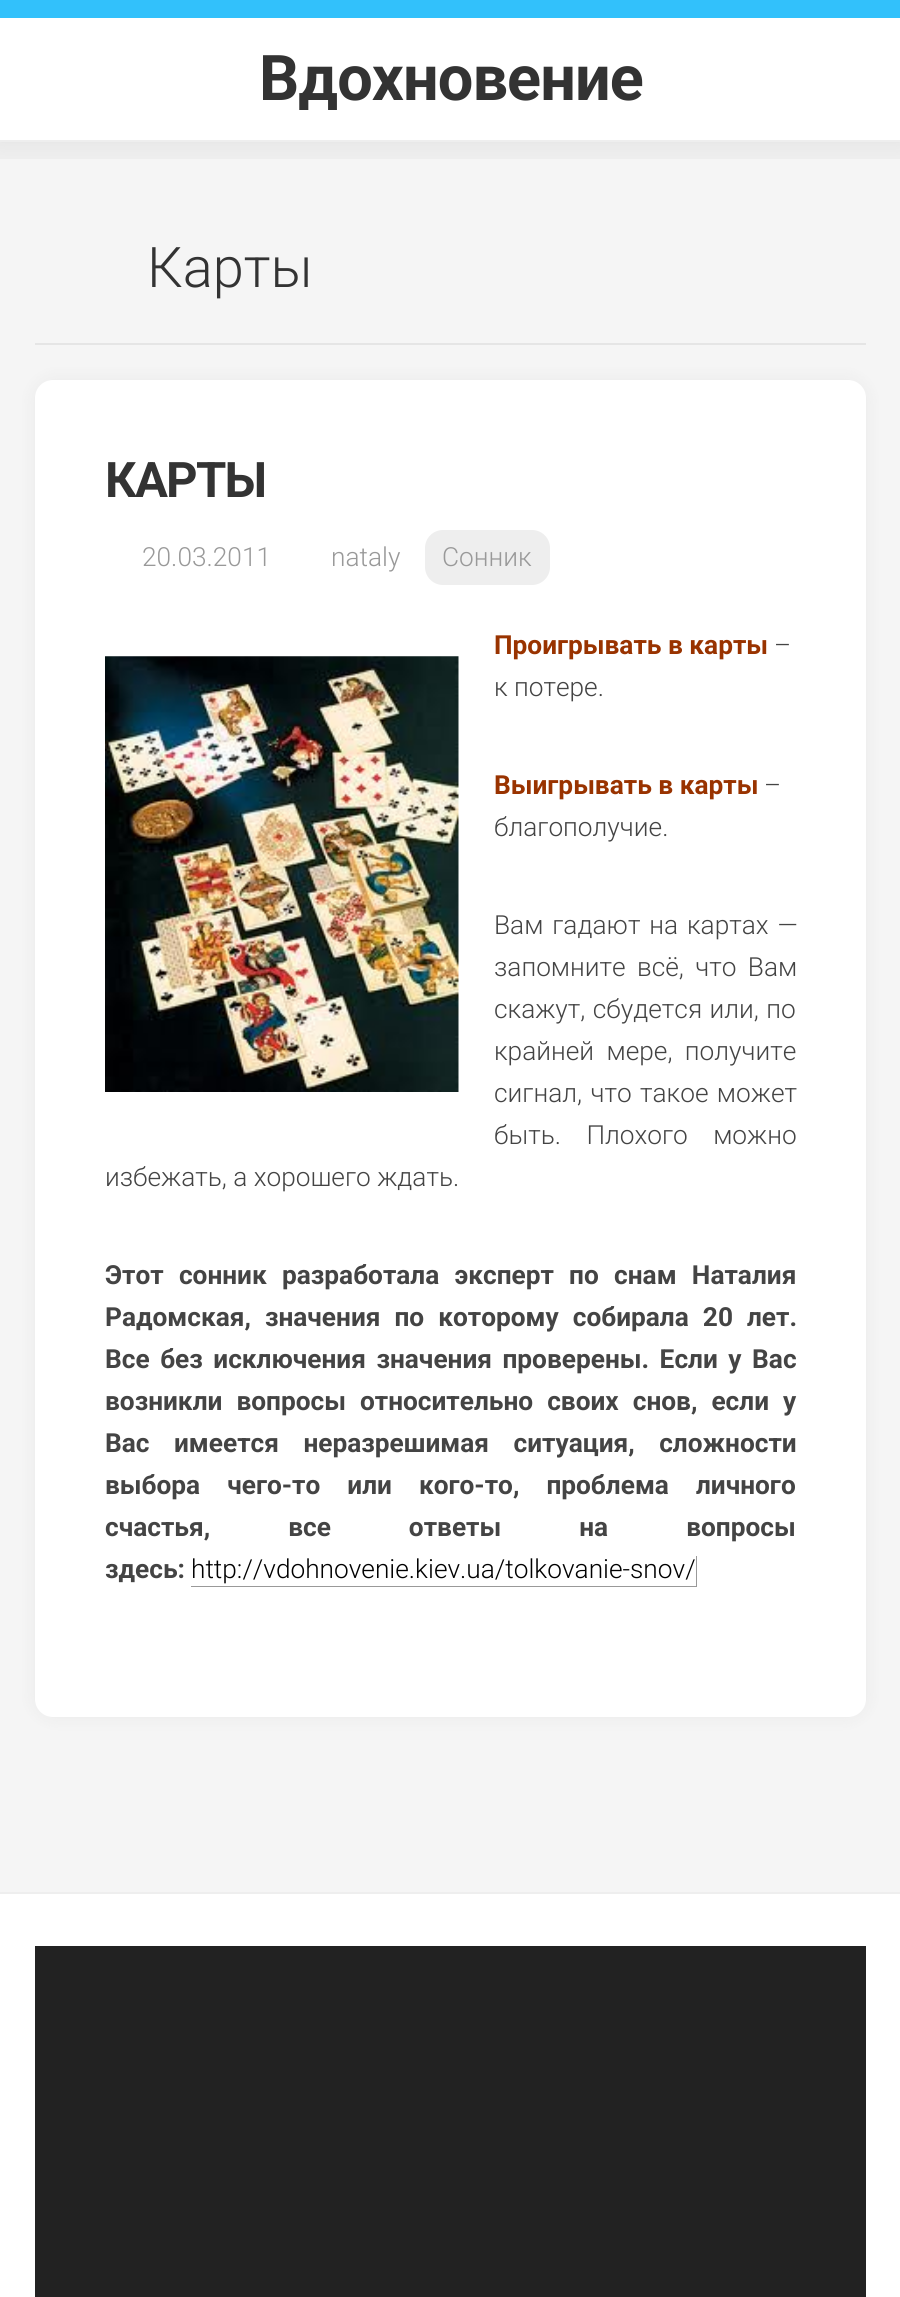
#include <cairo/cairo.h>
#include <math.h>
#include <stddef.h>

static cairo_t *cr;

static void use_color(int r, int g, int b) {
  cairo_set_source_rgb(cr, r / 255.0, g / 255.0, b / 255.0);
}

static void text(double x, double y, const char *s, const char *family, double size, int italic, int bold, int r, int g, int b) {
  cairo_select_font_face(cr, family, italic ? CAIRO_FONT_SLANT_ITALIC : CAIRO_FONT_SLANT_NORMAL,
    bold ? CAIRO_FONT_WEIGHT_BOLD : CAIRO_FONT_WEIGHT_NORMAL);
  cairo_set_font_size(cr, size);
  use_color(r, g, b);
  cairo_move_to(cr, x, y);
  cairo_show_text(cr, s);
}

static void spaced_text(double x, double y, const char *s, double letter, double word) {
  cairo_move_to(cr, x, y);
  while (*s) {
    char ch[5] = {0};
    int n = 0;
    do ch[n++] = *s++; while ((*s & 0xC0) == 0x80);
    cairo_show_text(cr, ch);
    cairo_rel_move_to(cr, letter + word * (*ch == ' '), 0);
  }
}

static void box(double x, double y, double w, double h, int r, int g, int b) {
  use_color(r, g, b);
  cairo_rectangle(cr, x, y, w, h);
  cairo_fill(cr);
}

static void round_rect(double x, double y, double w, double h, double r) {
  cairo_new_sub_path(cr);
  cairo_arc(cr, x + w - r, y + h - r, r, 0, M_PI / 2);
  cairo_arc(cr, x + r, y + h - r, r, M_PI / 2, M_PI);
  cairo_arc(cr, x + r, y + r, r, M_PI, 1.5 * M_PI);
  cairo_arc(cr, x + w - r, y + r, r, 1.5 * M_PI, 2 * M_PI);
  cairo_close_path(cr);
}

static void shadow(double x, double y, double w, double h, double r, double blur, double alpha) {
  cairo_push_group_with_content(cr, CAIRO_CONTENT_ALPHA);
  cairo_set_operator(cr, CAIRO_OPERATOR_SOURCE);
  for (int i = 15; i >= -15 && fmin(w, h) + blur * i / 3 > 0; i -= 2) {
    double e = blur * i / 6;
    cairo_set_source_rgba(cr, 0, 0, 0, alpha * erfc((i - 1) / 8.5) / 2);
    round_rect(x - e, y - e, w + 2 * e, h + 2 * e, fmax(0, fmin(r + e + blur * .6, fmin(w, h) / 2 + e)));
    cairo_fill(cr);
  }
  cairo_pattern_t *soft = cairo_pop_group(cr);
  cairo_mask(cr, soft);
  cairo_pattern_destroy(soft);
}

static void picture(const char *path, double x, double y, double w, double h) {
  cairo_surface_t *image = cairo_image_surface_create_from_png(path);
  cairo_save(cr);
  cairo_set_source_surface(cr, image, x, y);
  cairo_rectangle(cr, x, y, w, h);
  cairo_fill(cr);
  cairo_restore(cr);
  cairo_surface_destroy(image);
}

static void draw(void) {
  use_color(245, 245, 245);
  cairo_paint(cr);
  box(0, 142, 900, 17, 238, 238, 238);
  use_color(0, 0, 0);
  shadow(0, 0, 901, 142, 0, 9, 0.05);
  box(0, 18, 900, 122, 255, 255, 255);
  box(0, 0, 900, 18, 50, 193, 251);
  box(0, 140, 900, 2, 238, 238, 238);
  box(35, 343, 831, 2, 229, 229, 229);
  use_color(0, 0, 0);
  shadow(35, 380, 831, 1337, 18, 9, 0.05);
  use_color(255, 255, 255);
  round_rect(35, 380, 831, 1337, 18);
  cairo_fill(cr);
  use_color(238, 238, 238);
  round_rect(425, 530, 125, 55, 18);
  cairo_fill(cr);
  picture("img_01.png", 105, 656, 354, 436);
  use_color(153, 153, 153);
  cairo_new_path(cr);
  cairo_move_to(cr, 191, 1586);
  cairo_line_to(cr, 191, 1587);
  cairo_line_to(cr, 697, 1587);
  cairo_line_to(cr, 697, 1556);
  cairo_line_to(cr, 696, 1556);
  cairo_line_to(cr, 696, 1586);
  cairo_close_path(cr);
  cairo_fill(cr);
  box(0, 1894, 900, 403, 255, 255, 255);
  box(0, 1892, 900, 2, 238, 238, 238);
  box(35, 1946, 831, 351, 34, 34, 34);
  cairo_select_font_face(cr, "Roboto", CAIRO_FONT_SLANT_NORMAL, CAIRO_FONT_WEIGHT_BOLD);
  cairo_set_font_size(cr, 63);
  use_color(51, 51, 51);
  spaced_text(259, 100, "Вдохновение", -0.9, 0);
  text(147, 287, "Карты", "Roboto Light", 56, 0, 0, 51, 51, 51);
  cairo_select_font_face(cr, "Roboto", CAIRO_FONT_SLANT_NORMAL, CAIRO_FONT_WEIGHT_BOLD);
  cairo_set_font_size(cr, 49);
  spaced_text(105, 497, "КАРТЫ", -1.75, 0);
  text(142, 566, "20.03.2011", "Roboto Light", 26.25, 0, 0, 153, 153, 153);
  text(331, 566, "nataly", "Roboto Light", 26.25, 0, 0, 153, 153, 153);
  text(442, 566, "Сонник", "Roboto Light", 26.25, 0, 0, 153, 153, 153);
  text(494, 654, "Проигрывать в карты", "Roboto", 26.25, 0, 1, 153, 51, 0);
  text(774, 654, "–", "Roboto Light", 26.25, 0, 0, 68, 68, 68);
  text(494, 696, "к потере.", "Roboto Light", 26.25, 0, 0, 68, 68, 68);
  text(494, 794, "Выигрывать в карты", "Roboto", 26.25, 0, 1, 153, 51, 0);
  text(764, 794, "–", "Roboto Light", 26.25, 0, 0, 68, 68, 68);
  text(494, 836, "благополучие.", "Roboto Light", 26.25, 0, 0, 68, 68, 68);
  spaced_text(494, 934, "Вам гадают на картах —", 0, 2.5);
  spaced_text(494, 976, "запомните всё, что Вам", 0, 5);
  spaced_text(494, 1018, "скажут, сбудется или, по", 0, 1);
  spaced_text(494, 1060, "крайней мере, получите", 0, 6);
  spaced_text(494, 1102, "сигнал, что такое может", 0, 2);
  spaced_text(494, 1144, "быть. Плохого можно", 0, 19);
  text(105, 1186, "избежать, а хорошего ждать.", "Roboto Light", 26.25, 0, 0, 68, 68, 68);
  cairo_select_font_face(cr, "Roboto", CAIRO_FONT_SLANT_NORMAL, CAIRO_FONT_WEIGHT_BOLD);
  spaced_text(105, 1284, "Этот сонник разработала эксперт по снам Наталия", 0, 8.75);
  spaced_text(105, 1326, "Радомская, значения по которому собирала 20 лет.", 0, 7.5);
  spaced_text(105, 1368, "Все без исключения значения проверены. Если у Вас", 0, 4);
  spaced_text(105, 1410, "возникли вопросы относительно своих снов, если у", 0, 7.5);
  spaced_text(105, 1452, "Вас имеется неразрешимая ситуация, сложности", 0, 18);
  spaced_text(105, 1494, "выбора чего-то или кого-то, проблема личного", 0, 20.5);
  spaced_text(105, 1536, "счастья, все ответы на вопросы", 0, 71.5);
  text(105, 1578, "здесь:", "Roboto", 26.25, 0, 1, 68, 68, 68);
  text(191, 1578, "http://vdohnovenie.kiev.ua/tolkovanie-snov/", "Roboto Light", 26.25, 0, 0, 0, 0, 0);
}

int main(void) {
  cairo_surface_t *surface = cairo_image_surface_create(CAIRO_FORMAT_RGB24, 900, 2297);
  cr = cairo_create(surface);
  cairo_font_options_t *options = cairo_font_options_create();
  cairo_font_options_set_hint_metrics(options, CAIRO_HINT_METRICS_OFF);
  cairo_font_options_set_hint_style(options, CAIRO_HINT_STYLE_NONE);
  cairo_set_font_options(cr, options);
  cairo_set_miter_limit(cr, 4);
  draw();
  cairo_surface_write_to_png(surface, "out.png");
  cairo_font_options_destroy(options);
  cairo_destroy(cr);
  cairo_surface_destroy(surface);
  return 0;
}
